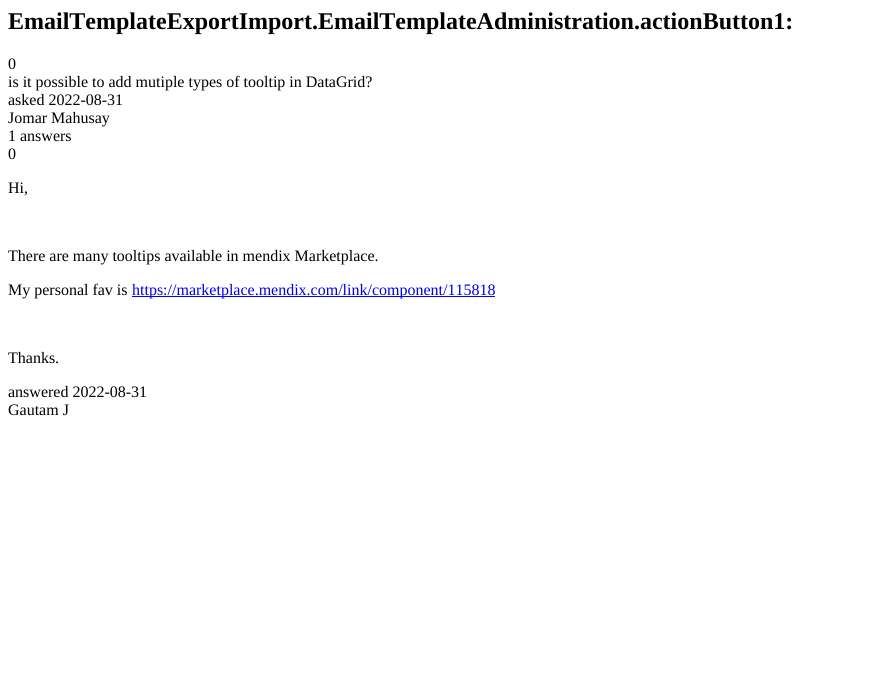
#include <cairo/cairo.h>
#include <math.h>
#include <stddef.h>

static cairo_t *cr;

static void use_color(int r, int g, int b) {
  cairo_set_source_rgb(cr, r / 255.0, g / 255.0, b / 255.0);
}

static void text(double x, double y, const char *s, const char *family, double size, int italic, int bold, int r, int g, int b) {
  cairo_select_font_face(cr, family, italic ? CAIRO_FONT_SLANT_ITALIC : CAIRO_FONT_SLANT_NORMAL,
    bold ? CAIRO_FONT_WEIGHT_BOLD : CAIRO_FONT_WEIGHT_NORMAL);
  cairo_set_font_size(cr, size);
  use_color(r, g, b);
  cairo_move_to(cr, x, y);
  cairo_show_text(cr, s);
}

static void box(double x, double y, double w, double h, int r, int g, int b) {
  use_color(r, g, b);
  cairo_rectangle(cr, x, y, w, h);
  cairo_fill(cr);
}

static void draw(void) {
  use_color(255, 255, 255);
  cairo_paint(cr);
  box(132, 296, 363, 1, 0, 0, 238);
  text(8, 29, "EmailTemplateExportImport.EmailTemplateAdministration.actionButton1:", "Liberation Serif", 24, 0, 1, 0, 0, 0);
  text(8, 69, "0", "Liberation Serif", 16, 0, 0, 0, 0, 0);
  text(8, 87, "is it possible to add mutiple types of tooltip in DataGrid?", "Liberation Serif", 16, 0, 0, 0, 0, 0);
  text(8, 105, "asked 2022-08-31", "Liberation Serif", 16, 0, 0, 0, 0, 0);
  text(8, 123, "Jomar Mahusay", "Liberation Serif", 16, 0, 0, 0, 0, 0);
  text(8, 141, "1 answers", "Liberation Serif", 16, 0, 0, 0, 0, 0);
  text(8, 159, "0", "Liberation Serif", 16, 0, 0, 0, 0, 0);
  text(8, 193, "Hi,", "Liberation Serif", 16, 0, 0, 0, 0, 0);
  text(8, 261, "There are many tooltips available in mendix Marketplace.", "Liberation Serif", 16, 0, 0, 0, 0, 0);
  text(8, 295, "My personal fav is", "Liberation Serif", 16, 0, 0, 0, 0, 0);
  text(132, 295, "https://marketplace.mendix.com/link/component/115818", "Liberation Serif", 16, 0, 0, 0, 0, 238);
  text(8, 363, "Thanks.", "Liberation Serif", 16, 0, 0, 0, 0, 0);
  text(8, 397, "answered 2022-08-31", "Liberation Serif", 16, 0, 0, 0, 0, 0);
  text(8, 415, "Gautam J", "Liberation Serif", 16, 0, 0, 0, 0, 0);
}

int main(void) {
  cairo_surface_t *surface = cairo_image_surface_create(CAIRO_FORMAT_RGB24, 884, 689);
  cr = cairo_create(surface);
  cairo_font_options_t *options = cairo_font_options_create();
  cairo_font_options_set_hint_metrics(options, CAIRO_HINT_METRICS_OFF);
  cairo_font_options_set_hint_style(options, CAIRO_HINT_STYLE_NONE);
  cairo_set_font_options(cr, options);
  cairo_set_miter_limit(cr, 4);
  draw();
  cairo_surface_write_to_png(surface, "out.png");
  cairo_font_options_destroy(options);
  cairo_destroy(cr);
  cairo_surface_destroy(surface);
  return 0;
}
